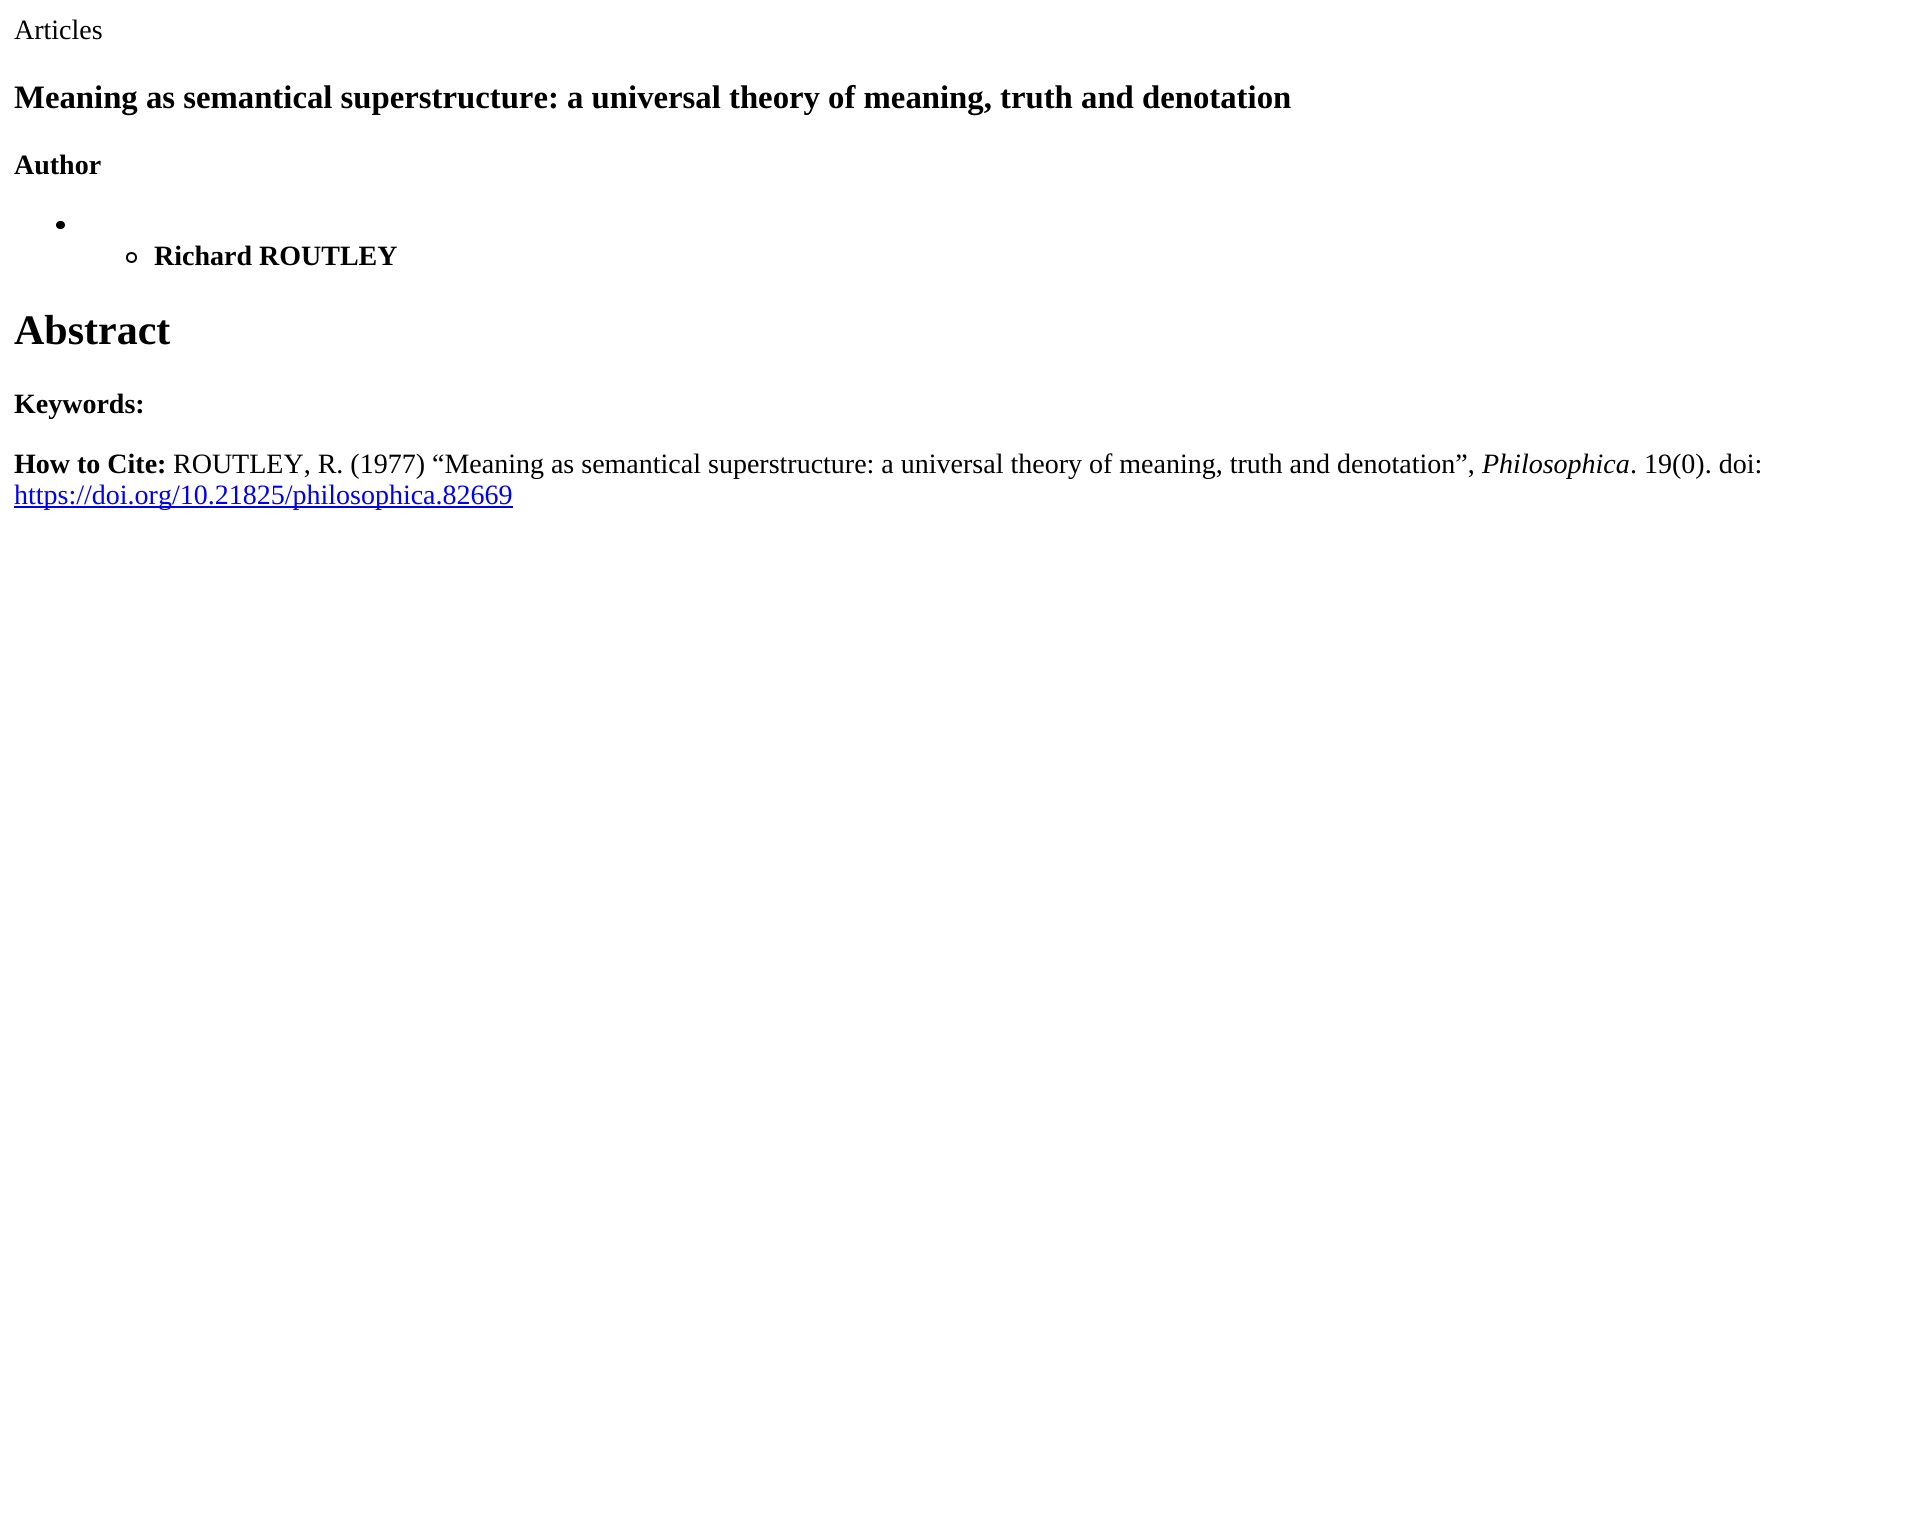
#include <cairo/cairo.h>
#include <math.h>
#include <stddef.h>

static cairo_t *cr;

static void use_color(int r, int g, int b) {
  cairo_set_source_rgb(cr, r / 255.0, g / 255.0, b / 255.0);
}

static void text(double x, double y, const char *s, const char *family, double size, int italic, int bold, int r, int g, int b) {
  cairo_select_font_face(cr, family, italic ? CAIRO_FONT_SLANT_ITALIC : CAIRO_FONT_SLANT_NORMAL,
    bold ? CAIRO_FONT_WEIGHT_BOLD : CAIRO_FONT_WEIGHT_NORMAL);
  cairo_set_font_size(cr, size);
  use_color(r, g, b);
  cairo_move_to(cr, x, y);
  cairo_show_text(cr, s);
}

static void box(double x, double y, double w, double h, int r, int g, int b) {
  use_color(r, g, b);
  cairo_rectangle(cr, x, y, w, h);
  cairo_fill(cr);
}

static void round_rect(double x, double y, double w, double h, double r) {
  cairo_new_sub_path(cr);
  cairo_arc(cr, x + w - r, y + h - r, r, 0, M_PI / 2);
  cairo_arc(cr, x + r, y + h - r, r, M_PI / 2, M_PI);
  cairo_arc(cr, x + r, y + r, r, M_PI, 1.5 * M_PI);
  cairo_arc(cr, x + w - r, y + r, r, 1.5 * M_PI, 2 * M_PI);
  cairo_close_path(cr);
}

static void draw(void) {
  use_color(255, 255, 255);
  cairo_paint(cr);
  use_color(0, 0, 0);
  round_rect(56, 221, 9, 8, 4);
  cairo_fill(cr);
  cairo_arc(cr, 131.5, 257.5, 4.5, 0, 2 * M_PI);
  cairo_stroke(cr);
  box(14, 506, 499, 2, 0, 0, 238);
  text(14, 39, "Articles", "Liberation Serif", 28, 0, 0, 0, 0, 0);
  text(14, 108, "Meaning as semantical superstructure: a universal theory of meaning, truth and denotation", "Liberation Serif", 32.75, 0, 1, 0, 0, 0);
  text(14, 174, "Author", "Liberation Serif", 28, 0, 1, 0, 0, 0);
  text(154, 265, "Richard ROUTLEY", "Liberation Serif", 28, 0, 1, 0, 0, 0);
  text(14, 344, "Abstract", "Liberation Serif", 42, 0, 1, 0, 0, 0);
  text(14, 413, "Keywords:", "Liberation Serif", 28, 0, 1, 0, 0, 0);
  text(14, 473, "How to Cite:", "Liberation Serif", 28, 0, 1, 0, 0, 0);
  text(173, 473, "ROUTLEY, R. (1977) “Meaning as semantical superstructure: a universal theory of meaning, truth and denotation”,", "Liberation Serif", 28, 0, 0, 0, 0, 0);
  text(1482, 473, "Philosophica", "Liberation Serif", 28, 1, 0, 0, 0, 0);
  text(1630, 473, ". 19(0). doi:", "Liberation Serif", 28, 0, 0, 0, 0, 0);
  text(14, 504, "https://doi.org/10.21825/philosophica.82669", "Liberation Serif", 28, 0, 0, 0, 0, 238);
}

int main(void) {
  cairo_surface_t *surface = cairo_image_surface_create(CAIRO_FORMAT_RGB24, 1917, 1520);
  cr = cairo_create(surface);
  cairo_font_options_t *options = cairo_font_options_create();
  cairo_font_options_set_hint_metrics(options, CAIRO_HINT_METRICS_OFF);
  cairo_font_options_set_hint_style(options, CAIRO_HINT_STYLE_NONE);
  cairo_set_font_options(cr, options);
  cairo_set_miter_limit(cr, 4);
  draw();
  cairo_surface_write_to_png(surface, "out.png");
  cairo_font_options_destroy(options);
  cairo_destroy(cr);
  cairo_surface_destroy(surface);
  return 0;
}
